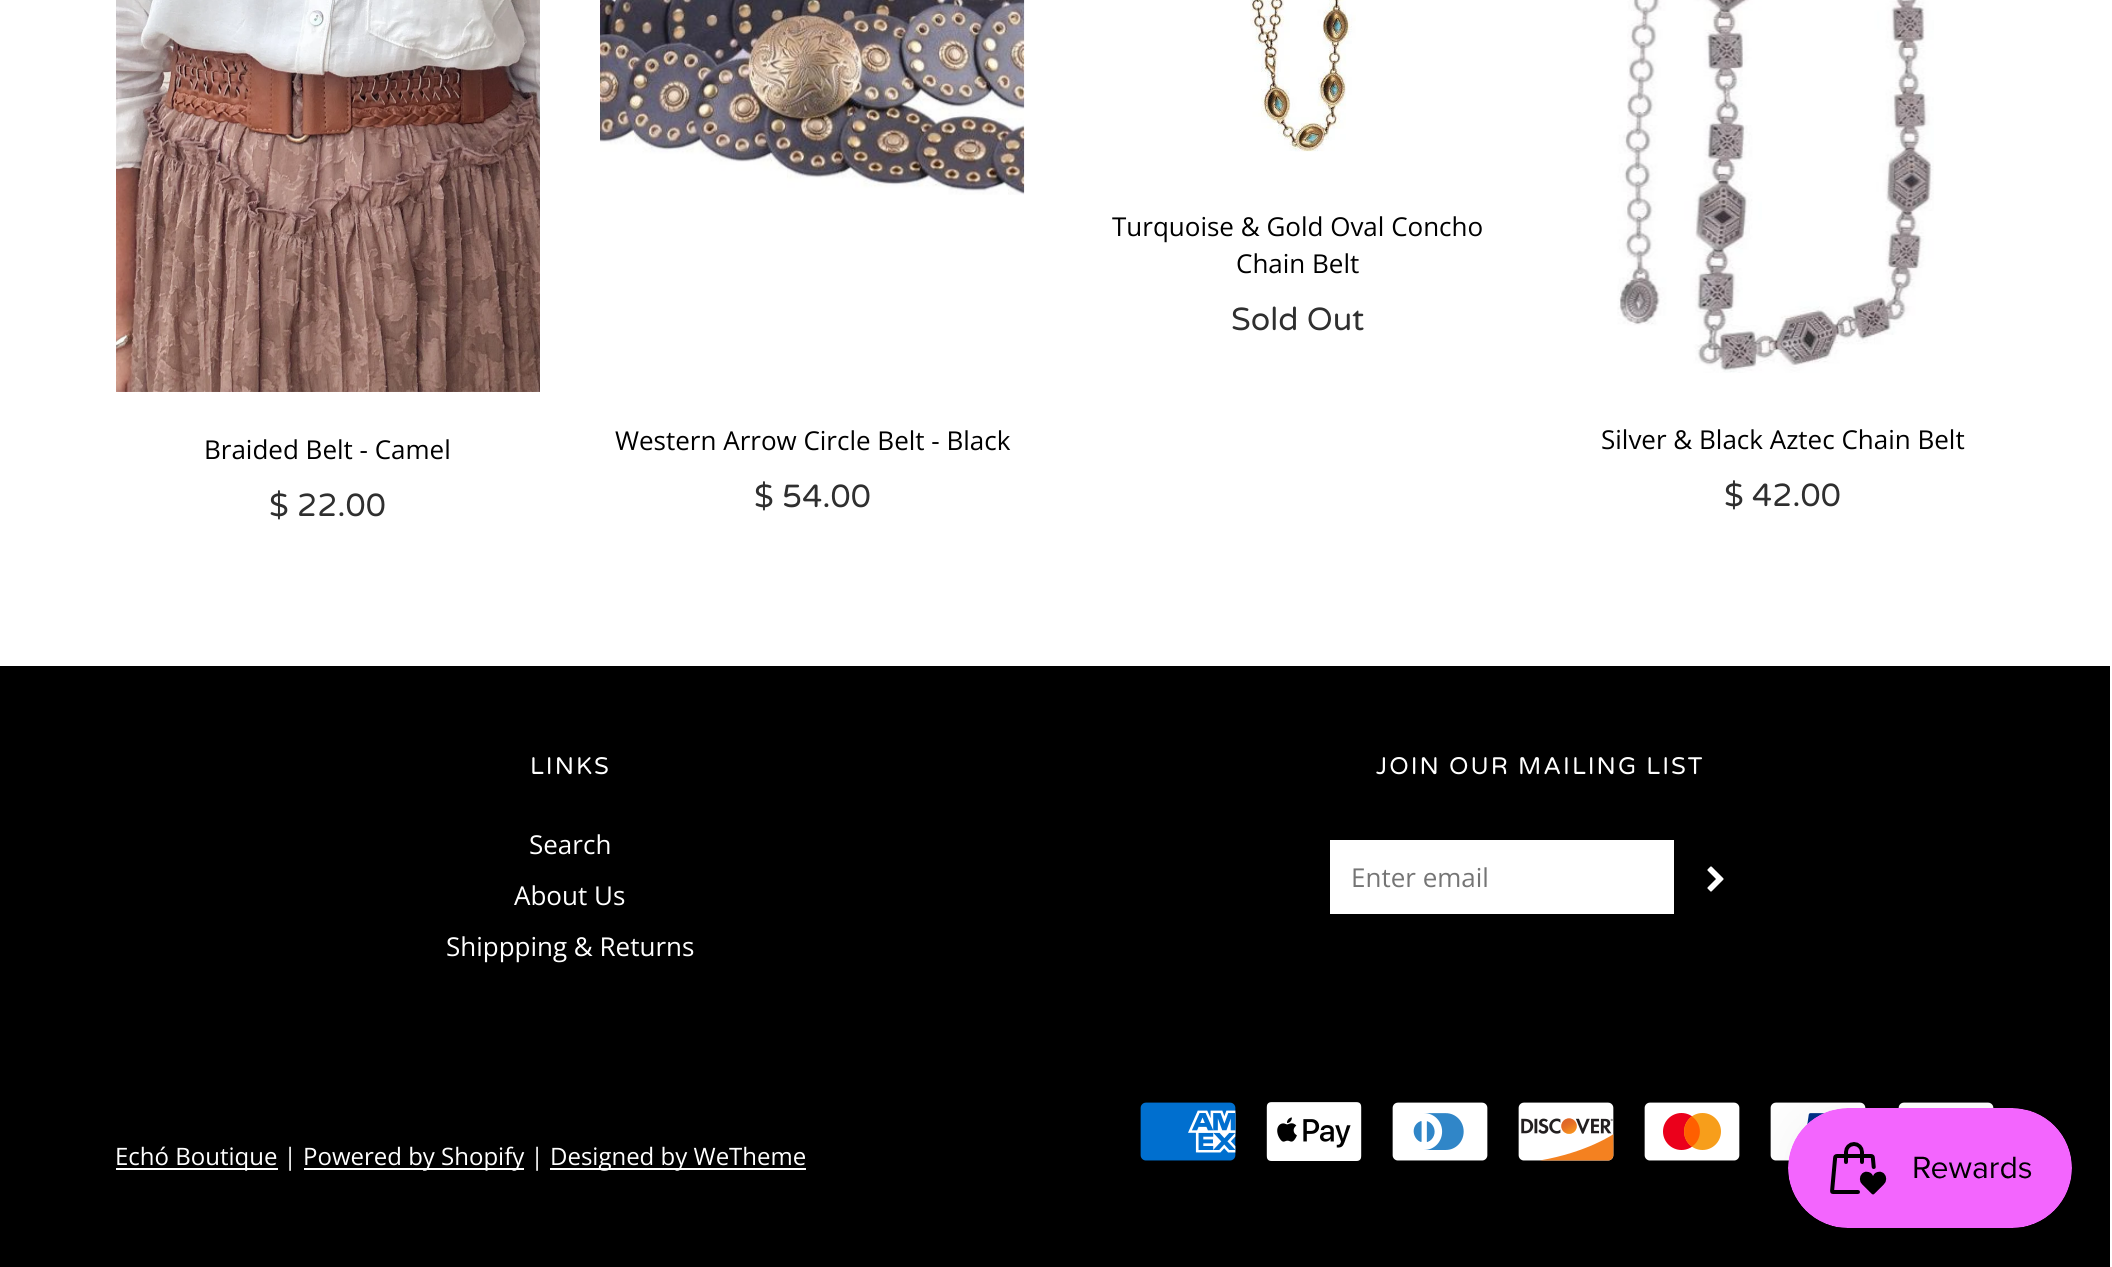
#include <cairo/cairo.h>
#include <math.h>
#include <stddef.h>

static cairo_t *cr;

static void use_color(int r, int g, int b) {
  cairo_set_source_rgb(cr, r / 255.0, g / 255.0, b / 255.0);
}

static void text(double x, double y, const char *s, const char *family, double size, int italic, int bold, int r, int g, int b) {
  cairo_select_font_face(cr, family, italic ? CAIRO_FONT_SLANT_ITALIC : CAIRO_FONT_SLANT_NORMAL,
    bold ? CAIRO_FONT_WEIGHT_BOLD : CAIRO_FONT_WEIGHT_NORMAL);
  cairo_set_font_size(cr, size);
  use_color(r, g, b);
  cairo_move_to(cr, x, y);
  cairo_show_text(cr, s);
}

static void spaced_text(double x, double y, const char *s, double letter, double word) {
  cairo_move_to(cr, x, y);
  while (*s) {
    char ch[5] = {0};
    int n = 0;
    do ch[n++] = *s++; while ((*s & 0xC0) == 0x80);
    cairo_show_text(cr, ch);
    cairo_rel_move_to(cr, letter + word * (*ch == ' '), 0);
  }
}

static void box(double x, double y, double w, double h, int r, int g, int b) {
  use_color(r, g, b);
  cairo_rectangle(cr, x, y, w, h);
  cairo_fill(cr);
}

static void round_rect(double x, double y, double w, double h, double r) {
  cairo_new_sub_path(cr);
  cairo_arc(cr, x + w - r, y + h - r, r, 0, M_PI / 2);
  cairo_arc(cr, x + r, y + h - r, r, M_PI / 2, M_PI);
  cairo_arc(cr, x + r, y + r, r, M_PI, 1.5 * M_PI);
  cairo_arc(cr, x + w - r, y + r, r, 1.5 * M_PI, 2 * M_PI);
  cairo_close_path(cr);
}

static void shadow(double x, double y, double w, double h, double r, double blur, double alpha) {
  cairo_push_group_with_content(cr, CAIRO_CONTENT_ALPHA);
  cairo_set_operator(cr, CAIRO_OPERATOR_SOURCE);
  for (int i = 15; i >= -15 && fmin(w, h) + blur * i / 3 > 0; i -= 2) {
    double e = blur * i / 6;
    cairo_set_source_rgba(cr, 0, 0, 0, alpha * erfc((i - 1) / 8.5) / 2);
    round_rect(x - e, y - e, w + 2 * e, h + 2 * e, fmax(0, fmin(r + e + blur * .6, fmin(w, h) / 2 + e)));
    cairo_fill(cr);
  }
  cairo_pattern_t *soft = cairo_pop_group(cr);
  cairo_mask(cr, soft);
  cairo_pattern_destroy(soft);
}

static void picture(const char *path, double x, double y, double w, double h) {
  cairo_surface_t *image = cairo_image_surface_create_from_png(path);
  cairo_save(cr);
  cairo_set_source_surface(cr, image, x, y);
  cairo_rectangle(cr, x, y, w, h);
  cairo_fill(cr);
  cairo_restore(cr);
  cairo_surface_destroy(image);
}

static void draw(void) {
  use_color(255, 255, 255);
  cairo_paint(cr);
  picture("img_01.png", 1250, 0, 106, 152);
  picture("img_02.png", 116, 0, 424, 392);
  picture("img_03.png", 600, 0, 425, 195);
  picture("img_04.png", 1617, 0, 317, 373);
  box(0, 666, 2110, 601, 0, 0, 0);
  box(1330, 840, 344, 74, 255, 255, 255);
  picture("img_05.png", 1707, 866, 17, 26);
  box(116, 1168, 162, 2, 255, 255, 255);
  box(304, 1168, 220, 2, 255, 255, 255);
  box(550, 1168, 256, 2, 255, 255, 255);
  picture("img_06.png", 1140, 1102, 96, 59);
  picture("img_07.png", 1266, 1102, 96, 59);
  picture("img_08.png", 1392, 1102, 96, 59);
  picture("img_09.png", 1518, 1102, 96, 59);
  picture("img_10.png", 1644, 1102, 96, 59);
  picture("img_11.png", 1770, 1102, 96, 59);
  picture("img_12.png", 1898, 1102, 96, 6);
  use_color(0, 0, 0);
  shadow(1788, 1108, 284, 120, 60, 25, 0.05);
  picture("img_13.png", 1788, 1108, 284, 120);
  text(1112, 236, "Turquoise & Gold Oval Concho", "Open Sans", 26, 0, 0, 0, 0, 0);
  text(1236, 273, "Chain Belt", "Open Sans", 26, 0, 0, 0, 0, 0);
  text(1231, 330, "Sold Out", "Varela Round", 32, 0, 0, 47, 47, 47);
  text(204, 459, "Braided Belt - Camel", "Open Sans", 26, 0, 0, 0, 0, 0);
  text(269, 516, "$ 22.00", "Varela Round", 32, 0, 0, 47, 47, 47);
  text(615, 450, "Western Arrow Circle Belt - Black", "Open Sans", 26, 0, 0, 0, 0, 0);
  text(754, 507, "$ 54.00", "Varela Round", 32, 0, 0, 47, 47, 47);
  text(1601, 449, "Silver & Black Aztec Chain Belt", "Open Sans", 26, 0, 0, 0, 0, 0);
  text(1724, 506, "$ 42.00", "Varela Round", 32, 0, 0, 47, 47, 47);
  cairo_set_font_size(cr, 24);
  use_color(255, 255, 255);
  spaced_text(530, 774, "LINKS", 2, 0);
  text(529, 854, "Search", "Open Sans", 26, 0, 0, 255, 255, 255);
  text(514, 905, "About Us", "Open Sans", 26, 0, 0, 255, 255, 255);
  text(446, 956, "Shippping & Returns", "Open Sans", 26, 0, 0, 255, 255, 255);
  cairo_select_font_face(cr, "Varela Round", CAIRO_FONT_SLANT_NORMAL, CAIRO_FONT_WEIGHT_NORMAL);
  cairo_set_font_size(cr, 24);
  spaced_text(1376, 774, "JOIN OUR MAILING LIST", 2, 0);
  text(1351, 887, "Enter email", "Open Sans", 26, 0, 0, 117, 117, 117);
  text(115, 1165, "Echó Boutique |", "Open Sans", 24, 0, 0, 255, 255, 255);
  text(303, 1165, "Powered by Shopify |", "Open Sans", 24, 0, 0, 255, 255, 255);
  text(550, 1165, "Designed by WeTheme", "Open Sans", 24, 0, 0, 255, 255, 255);
}

int main(void) {
  cairo_surface_t *surface = cairo_image_surface_create(CAIRO_FORMAT_RGB24, 2112, 1267);
  cr = cairo_create(surface);
  cairo_font_options_t *options = cairo_font_options_create();
  cairo_font_options_set_hint_metrics(options, CAIRO_HINT_METRICS_OFF);
  cairo_font_options_set_hint_style(options, CAIRO_HINT_STYLE_NONE);
  cairo_set_font_options(cr, options);
  cairo_set_miter_limit(cr, 4);
  draw();
  cairo_surface_write_to_png(surface, "out.png");
  cairo_font_options_destroy(options);
  cairo_destroy(cr);
  cairo_surface_destroy(surface);
  return 0;
}
